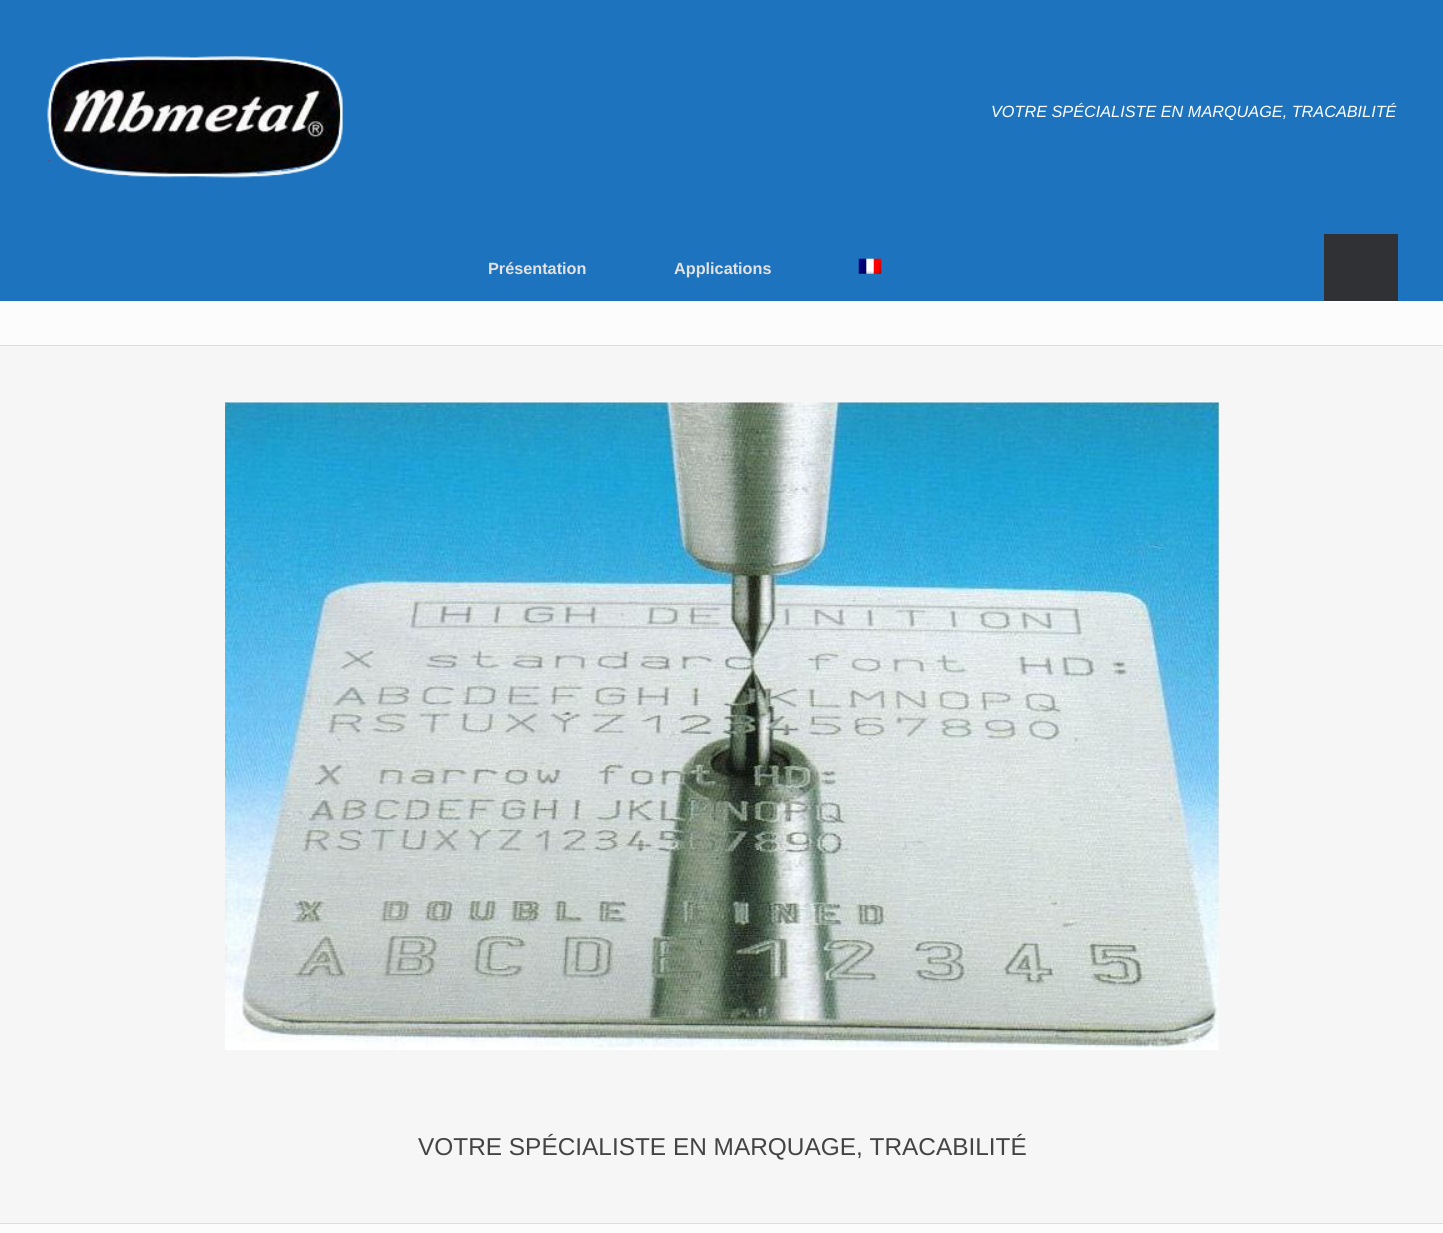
#include <cairo/cairo.h>
#include <math.h>
#include <stddef.h>

static cairo_t *cr;

static void use_color(int r, int g, int b) {
  cairo_set_source_rgb(cr, r / 255.0, g / 255.0, b / 255.0);
}

static void text(double x, double y, const char *s, const char *family, double size, int italic, int bold, int r, int g, int b) {
  cairo_select_font_face(cr, family, italic ? CAIRO_FONT_SLANT_ITALIC : CAIRO_FONT_SLANT_NORMAL,
    bold ? CAIRO_FONT_WEIGHT_BOLD : CAIRO_FONT_WEIGHT_NORMAL);
  cairo_set_font_size(cr, size);
  use_color(r, g, b);
  cairo_move_to(cr, x, y);
  cairo_show_text(cr, s);
}

static void box(double x, double y, double w, double h, int r, int g, int b) {
  use_color(r, g, b);
  cairo_rectangle(cr, x, y, w, h);
  cairo_fill(cr);
}

static void picture(const char *path, double x, double y, double w, double h) {
  cairo_surface_t *image = cairo_image_surface_create_from_png(path);
  cairo_save(cr);
  cairo_set_source_surface(cr, image, x, y);
  cairo_rectangle(cr, x, y, w, h);
  cairo_fill(cr);
  cairo_restore(cr);
  cairo_surface_destroy(image);
}

static void draw(void) {
  use_color(30, 115, 190);
  cairo_paint(cr);
  picture("img_01.png", 47, 56, 296, 122);
  picture("img_02.png", 858, 258, 24, 16);
  box(1324, 234, 74, 67, 48, 49, 52);
  box(0, 301, 1443, 932, 252, 252, 252);
  box(0, 346, 1443, 877, 246, 246, 246);
  box(0, 345, 1443, 1, 221, 221, 221);
  box(0, 1223, 1443, 1, 221, 221, 221);
  picture("img_03.png", 225, 402, 994, 648);
  text(991, 117, "VOTRE SPÉCIALISTE EN MARQUAGE, TRACABILITÉ", "Liberation Sans", 16.25, 1, 0, 255, 255, 255);
  text(488, 274, "Présentation", "Liberation Sans", 16.25, 0, 1, 226, 226, 226);
  text(674, 274, "Applications", "Liberation Sans", 16.25, 0, 1, 226, 226, 226);
  text(418, 1155, "VOTRE SPÉCIALISTE EN MARQUAGE, TRACABILITÉ", "Liberation Sans", 24.4, 0, 0, 68, 68, 68);
}

int main(void) {
  cairo_surface_t *surface = cairo_image_surface_create(CAIRO_FORMAT_RGB24, 1443, 1233);
  cr = cairo_create(surface);
  cairo_font_options_t *options = cairo_font_options_create();
  cairo_font_options_set_hint_metrics(options, CAIRO_HINT_METRICS_OFF);
  cairo_font_options_set_hint_style(options, CAIRO_HINT_STYLE_NONE);
  cairo_set_font_options(cr, options);
  cairo_set_miter_limit(cr, 4);
  draw();
  cairo_surface_write_to_png(surface, "out.png");
  cairo_font_options_destroy(options);
  cairo_destroy(cr);
  cairo_surface_destroy(surface);
  return 0;
}
